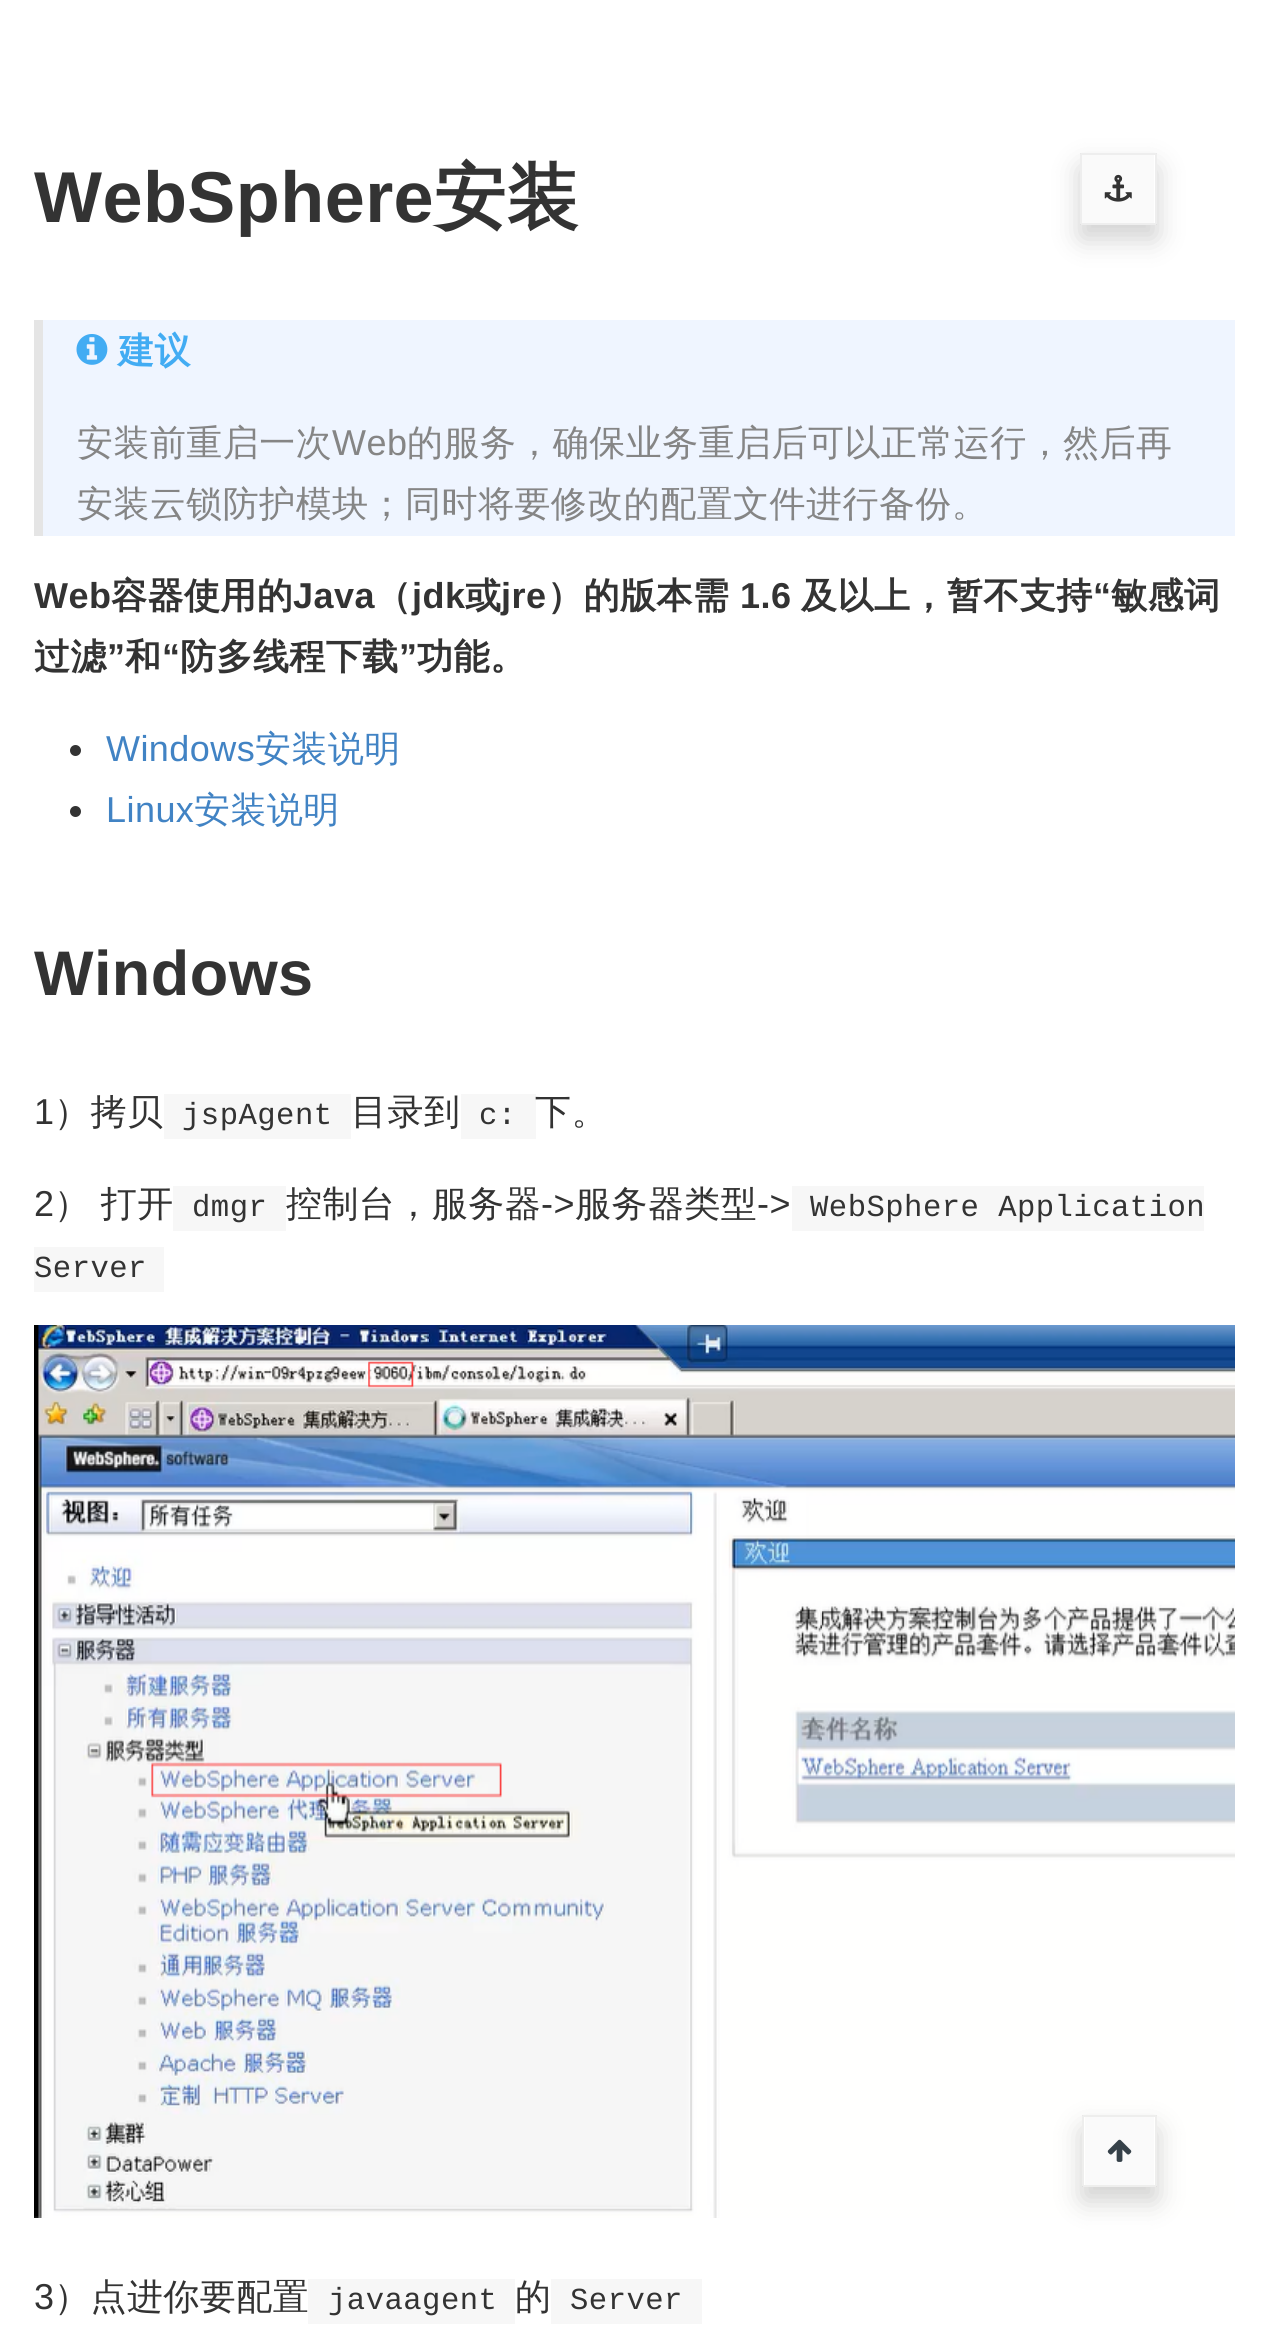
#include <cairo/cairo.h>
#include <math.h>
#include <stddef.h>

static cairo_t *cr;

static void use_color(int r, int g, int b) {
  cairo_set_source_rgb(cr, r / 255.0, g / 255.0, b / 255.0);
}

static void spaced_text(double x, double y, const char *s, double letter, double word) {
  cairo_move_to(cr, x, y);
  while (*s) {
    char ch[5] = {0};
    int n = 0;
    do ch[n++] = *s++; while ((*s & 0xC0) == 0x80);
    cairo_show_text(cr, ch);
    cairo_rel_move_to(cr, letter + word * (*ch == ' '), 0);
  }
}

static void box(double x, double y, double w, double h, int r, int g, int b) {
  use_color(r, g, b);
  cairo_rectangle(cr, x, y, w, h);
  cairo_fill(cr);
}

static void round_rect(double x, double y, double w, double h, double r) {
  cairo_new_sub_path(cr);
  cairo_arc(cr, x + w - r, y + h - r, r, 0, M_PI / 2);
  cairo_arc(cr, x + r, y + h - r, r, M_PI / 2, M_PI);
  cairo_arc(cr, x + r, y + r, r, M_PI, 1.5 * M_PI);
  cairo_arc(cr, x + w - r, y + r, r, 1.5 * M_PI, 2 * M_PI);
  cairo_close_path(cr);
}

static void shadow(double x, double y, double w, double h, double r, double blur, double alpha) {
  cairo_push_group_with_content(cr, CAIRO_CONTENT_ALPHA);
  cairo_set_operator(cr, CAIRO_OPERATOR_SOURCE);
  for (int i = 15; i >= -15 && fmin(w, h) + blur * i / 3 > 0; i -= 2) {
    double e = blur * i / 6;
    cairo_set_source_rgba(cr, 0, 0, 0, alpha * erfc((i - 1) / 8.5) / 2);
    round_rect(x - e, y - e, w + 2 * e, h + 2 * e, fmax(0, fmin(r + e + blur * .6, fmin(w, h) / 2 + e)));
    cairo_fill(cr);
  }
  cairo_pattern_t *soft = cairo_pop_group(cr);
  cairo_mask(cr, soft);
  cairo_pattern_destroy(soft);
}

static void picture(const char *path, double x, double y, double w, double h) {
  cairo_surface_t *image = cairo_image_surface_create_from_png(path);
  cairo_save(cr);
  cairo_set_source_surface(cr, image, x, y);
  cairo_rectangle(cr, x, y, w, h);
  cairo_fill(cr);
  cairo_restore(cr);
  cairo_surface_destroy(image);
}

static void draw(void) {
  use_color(255, 255, 255);
  cairo_paint(cr);
  cairo_save(cr);
  cairo_set_fill_rule(cr, CAIRO_FILL_RULE_EVEN_ODD);
  cairo_new_path(cr);
  cairo_move_to(cr, 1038, 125);
  cairo_line_to(cr, 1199, 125);
  cairo_line_to(cr, 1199, 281);
  cairo_line_to(cr, 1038, 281);
  cairo_close_path(cr);
  cairo_move_to(cr, 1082, 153);
  cairo_line_to(cr, 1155, 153);
  cairo_curve_to(cr, 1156, 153, 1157, 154, 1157, 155);
  cairo_line_to(cr, 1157, 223);
  cairo_curve_to(cr, 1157, 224, 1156, 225, 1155, 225);
  cairo_line_to(cr, 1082, 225);
  cairo_curve_to(cr, 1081, 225, 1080, 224, 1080, 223);
  cairo_line_to(cr, 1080, 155);
  cairo_curve_to(cr, 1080, 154, 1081, 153, 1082, 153);
  cairo_close_path(cr);
  cairo_clip(cr);
  use_color(0, 0, 0);
  shadow(1080, 167, 77, 72, 2, 13.5, 0.18);
  cairo_restore(cr);
  box(1082, 155, 72, 68, 250, 250, 250);
  cairo_rectangle(cr, 1081, 154, 75, 70);
  cairo_set_source_rgba(cr, 0, 0, 0, 0.07);
  cairo_stroke(cr);
  picture("img_01.png", 1104, 174, 28, 28);
  box(43, 320, 1192, 216, 239, 245, 255);
  box(34, 320, 9, 216, 229, 229, 229);
  picture("img_02.png", 76, 334, 32, 31);
  use_color(51, 51, 51);
  cairo_arc(cr, 75.5, 750.5, 5.5, 0, 2 * M_PI);
  cairo_fill(cr);
  cairo_arc(cr, 75.5, 811.5, 5.5, 0, 2 * M_PI);
  cairo_fill(cr);
  box(164, 1094, 187, 45, 247, 247, 247);
  box(461, 1094, 75, 45, 247, 247, 247);
  box(173, 1186, 113, 45, 247, 247, 247);
  box(792, 1186, 412, 45, 247, 247, 247);
  box(34, 1247, 130, 45, 247, 247, 247);
  picture("img_03.png", 34, 1325, 1201, 893);
  cairo_save(cr);
  cairo_set_fill_rule(cr, CAIRO_FILL_RULE_EVEN_ODD);
  cairo_new_path(cr);
  cairo_move_to(cr, 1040, 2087);
  cairo_line_to(cr, 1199, 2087);
  cairo_line_to(cr, 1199, 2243);
  cairo_line_to(cr, 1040, 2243);
  cairo_close_path(cr);
  cairo_move_to(cr, 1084, 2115);
  cairo_line_to(cr, 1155, 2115);
  cairo_curve_to(cr, 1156, 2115, 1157, 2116, 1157, 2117);
  cairo_line_to(cr, 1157, 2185);
  cairo_curve_to(cr, 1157, 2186, 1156, 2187, 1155, 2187);
  cairo_line_to(cr, 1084, 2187);
  cairo_curve_to(cr, 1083, 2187, 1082, 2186, 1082, 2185);
  cairo_line_to(cr, 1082, 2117);
  cairo_curve_to(cr, 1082, 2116, 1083, 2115, 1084, 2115);
  cairo_close_path(cr);
  cairo_clip(cr);
  use_color(0, 0, 0);
  shadow(1082, 2129, 75, 72, 2, 13.5, 0.18);
  cairo_restore(cr);
  box(1085, 2117, 69, 68, 250, 250, 250);
  cairo_rectangle(cr, 1083, 2116, 73, 70);
  cairo_set_source_rgba(cr, 0, 0, 0, 0.07);
  cairo_stroke(cr);
  picture("img_04.png", 1107, 2139, 25, 23);
  box(308, 2279, 207, 45, 247, 247, 247);
  box(551, 2279, 151, 45, 247, 247, 247);
  cairo_select_font_face(cr, "Liberation Sans", CAIRO_FONT_SLANT_NORMAL, CAIRO_FONT_WEIGHT_BOLD);
  cairo_set_font_size(cr, 72);
  use_color(51, 51, 51);
  spaced_text(34, 222, "WebSphere", 0.45, 0);
  cairo_select_font_face(cr, "WenQuanYi Zen Hei", CAIRO_FONT_SLANT_NORMAL, CAIRO_FONT_WEIGHT_BOLD);
  spaced_text(434, 222, "安装", 0.45, 0);
  cairo_set_font_size(cr, 36);
  use_color(66, 172, 243);
  spaced_text(118, 363, "建议", 0.45, 0);
  cairo_select_font_face(cr, "WenQuanYi Zen Hei Medium", CAIRO_FONT_SLANT_NORMAL, CAIRO_FONT_WEIGHT_NORMAL);
  use_color(133, 133, 133);
  spaced_text(77, 455, "安装前重启一次", 0.45, 0);
  cairo_select_font_face(cr, "Liberation Sans", CAIRO_FONT_SLANT_NORMAL, CAIRO_FONT_WEIGHT_NORMAL);
  spaced_text(332, 455, "Web", 0.45, 0);
  cairo_select_font_face(cr, "WenQuanYi Zen Hei Medium", CAIRO_FONT_SLANT_NORMAL, CAIRO_FONT_WEIGHT_NORMAL);
  spaced_text(407, 455, "的服务，确保业务重启后可以正常运行，然后再", 0.45, 0);
  spaced_text(77, 516, "安装云锁防护模块；同时将要修改的配置文件进行备份。", 0.45, 0);
  cairo_select_font_face(cr, "Liberation Sans", CAIRO_FONT_SLANT_NORMAL, CAIRO_FONT_WEIGHT_BOLD);
  use_color(51, 51, 51);
  spaced_text(34, 608, "Web", 0.45, 0);
  cairo_select_font_face(cr, "WenQuanYi Zen Hei", CAIRO_FONT_SLANT_NORMAL, CAIRO_FONT_WEIGHT_BOLD);
  spaced_text(111, 608, "容器使用的", 0.45, 0);
  cairo_select_font_face(cr, "Liberation Sans", CAIRO_FONT_SLANT_NORMAL, CAIRO_FONT_WEIGHT_BOLD);
  spaced_text(293, 608, "Java", 0.45, 0);
  cairo_select_font_face(cr, "WenQuanYi Zen Hei", CAIRO_FONT_SLANT_NORMAL, CAIRO_FONT_WEIGHT_BOLD);
  spaced_text(375, 608, "（", 0.45, 0);
  cairo_select_font_face(cr, "Liberation Sans", CAIRO_FONT_SLANT_NORMAL, CAIRO_FONT_WEIGHT_BOLD);
  spaced_text(412, 608, "jdk", 0.45, 0);
  cairo_select_font_face(cr, "WenQuanYi Zen Hei", CAIRO_FONT_SLANT_NORMAL, CAIRO_FONT_WEIGHT_BOLD);
  spaced_text(465, 608, "或", 0.45, 0);
  cairo_select_font_face(cr, "Liberation Sans", CAIRO_FONT_SLANT_NORMAL, CAIRO_FONT_WEIGHT_BOLD);
  spaced_text(501, 608, "jre", 0.45, 0);
  cairo_select_font_face(cr, "WenQuanYi Zen Hei", CAIRO_FONT_SLANT_NORMAL, CAIRO_FONT_WEIGHT_BOLD);
  spaced_text(547, 608, "）的版本需", 0.45, 0);
  cairo_select_font_face(cr, "Liberation Sans", CAIRO_FONT_SLANT_NORMAL, CAIRO_FONT_WEIGHT_BOLD);
  spaced_text(740, 608, "1.6", 0.45, 0);
  cairo_select_font_face(cr, "WenQuanYi Zen Hei", CAIRO_FONT_SLANT_NORMAL, CAIRO_FONT_WEIGHT_BOLD);
  spaced_text(801, 608, "及以上，暂不支持", 0.45, 0);
  cairo_select_font_face(cr, "Liberation Sans", CAIRO_FONT_SLANT_NORMAL, CAIRO_FONT_WEIGHT_BOLD);
  spaced_text(1093, 608, "“", 0.45, 0);
  cairo_select_font_face(cr, "WenQuanYi Zen Hei", CAIRO_FONT_SLANT_NORMAL, CAIRO_FONT_WEIGHT_BOLD);
  spaced_text(1111, 608, "敏感词", 0.45, 0);
  spaced_text(34, 669, "过滤", 0.45, 0);
  cairo_select_font_face(cr, "Liberation Sans", CAIRO_FONT_SLANT_NORMAL, CAIRO_FONT_WEIGHT_BOLD);
  spaced_text(107, 669, "”", 0.45, 0);
  cairo_select_font_face(cr, "WenQuanYi Zen Hei", CAIRO_FONT_SLANT_NORMAL, CAIRO_FONT_WEIGHT_BOLD);
  spaced_text(125, 669, "和", 0.45, 0);
  cairo_select_font_face(cr, "Liberation Sans", CAIRO_FONT_SLANT_NORMAL, CAIRO_FONT_WEIGHT_BOLD);
  spaced_text(162, 669, "“", 0.45, 0);
  cairo_select_font_face(cr, "WenQuanYi Zen Hei", CAIRO_FONT_SLANT_NORMAL, CAIRO_FONT_WEIGHT_BOLD);
  spaced_text(180, 669, "防多线程下载", 0.45, 0);
  cairo_select_font_face(cr, "Liberation Sans", CAIRO_FONT_SLANT_NORMAL, CAIRO_FONT_WEIGHT_BOLD);
  spaced_text(399, 669, "”", 0.45, 0);
  cairo_select_font_face(cr, "WenQuanYi Zen Hei", CAIRO_FONT_SLANT_NORMAL, CAIRO_FONT_WEIGHT_BOLD);
  spaced_text(417, 669, "功能。", 0.45, 0);
  cairo_select_font_face(cr, "Liberation Sans", CAIRO_FONT_SLANT_NORMAL, CAIRO_FONT_WEIGHT_NORMAL);
  use_color(65, 131, 196);
  spaced_text(106, 761, "Windows", 0.45, 0);
  cairo_select_font_face(cr, "WenQuanYi Zen Hei Medium", CAIRO_FONT_SLANT_NORMAL, CAIRO_FONT_WEIGHT_NORMAL);
  spaced_text(255, 761, "安装说明", 0.45, 0);
  cairo_select_font_face(cr, "Liberation Sans", CAIRO_FONT_SLANT_NORMAL, CAIRO_FONT_WEIGHT_NORMAL);
  spaced_text(106, 822, "Linux", 0.45, 0);
  cairo_select_font_face(cr, "WenQuanYi Zen Hei Medium", CAIRO_FONT_SLANT_NORMAL, CAIRO_FONT_WEIGHT_NORMAL);
  spaced_text(194, 822, "安装说明", 0.45, 0);
  cairo_select_font_face(cr, "Liberation Sans", CAIRO_FONT_SLANT_NORMAL, CAIRO_FONT_WEIGHT_BOLD);
  cairo_set_font_size(cr, 63);
  use_color(51, 51, 51);
  spaced_text(34, 995, "Windows", 0.45, 0);
  cairo_select_font_face(cr, "Liberation Sans", CAIRO_FONT_SLANT_NORMAL, CAIRO_FONT_WEIGHT_NORMAL);
  cairo_set_font_size(cr, 36);
  spaced_text(34, 1124, "1", 0.45, 0);
  cairo_select_font_face(cr, "WenQuanYi Zen Hei Medium", CAIRO_FONT_SLANT_NORMAL, CAIRO_FONT_WEIGHT_NORMAL);
  spaced_text(54, 1124, "）拷贝", 0.45, 0);
  cairo_select_font_face(cr, "Liberation Mono", CAIRO_FONT_SLANT_NORMAL, CAIRO_FONT_WEIGHT_NORMAL);
  cairo_set_font_size(cr, 30.6);
  spaced_text(182, 1124, "jspAgent", 0.45, 0);
  cairo_select_font_face(cr, "WenQuanYi Zen Hei Medium", CAIRO_FONT_SLANT_NORMAL, CAIRO_FONT_WEIGHT_NORMAL);
  cairo_set_font_size(cr, 36);
  spaced_text(351, 1124, "目录到", 0.45, 0);
  cairo_select_font_face(cr, "Liberation Mono", CAIRO_FONT_SLANT_NORMAL, CAIRO_FONT_WEIGHT_NORMAL);
  cairo_set_font_size(cr, 30.6);
  spaced_text(479, 1124, "c:", 0.45, 0);
  cairo_select_font_face(cr, "WenQuanYi Zen Hei Medium", CAIRO_FONT_SLANT_NORMAL, CAIRO_FONT_WEIGHT_NORMAL);
  cairo_set_font_size(cr, 36);
  spaced_text(535, 1124, "下。", 0.45, 0);
  cairo_select_font_face(cr, "Liberation Sans", CAIRO_FONT_SLANT_NORMAL, CAIRO_FONT_WEIGHT_NORMAL);
  spaced_text(34, 1216, "2", 0.45, 0);
  cairo_select_font_face(cr, "WenQuanYi Zen Hei Medium", CAIRO_FONT_SLANT_NORMAL, CAIRO_FONT_WEIGHT_NORMAL);
  spaced_text(54, 1216, "） 打开", 0.45, -1);
  cairo_select_font_face(cr, "Liberation Mono", CAIRO_FONT_SLANT_NORMAL, CAIRO_FONT_WEIGHT_NORMAL);
  cairo_set_font_size(cr, 30.6);
  spaced_text(192, 1216, "dmgr", 0.45, 0);
  cairo_select_font_face(cr, "WenQuanYi Zen Hei Medium", CAIRO_FONT_SLANT_NORMAL, CAIRO_FONT_WEIGHT_NORMAL);
  cairo_set_font_size(cr, 36);
  spaced_text(286, 1216, "控制台，服务器", 0.45, 0);
  cairo_select_font_face(cr, "Liberation Sans", CAIRO_FONT_SLANT_NORMAL, CAIRO_FONT_WEIGHT_NORMAL);
  spaced_text(541, 1216, "->", 0.45, 0);
  cairo_select_font_face(cr, "WenQuanYi Zen Hei Medium", CAIRO_FONT_SLANT_NORMAL, CAIRO_FONT_WEIGHT_NORMAL);
  spaced_text(575, 1216, "服务器类型", 0.45, 0);
  cairo_select_font_face(cr, "Liberation Sans", CAIRO_FONT_SLANT_NORMAL, CAIRO_FONT_WEIGHT_NORMAL);
  spaced_text(757, 1216, "->", 0.45, 0);
  cairo_select_font_face(cr, "Liberation Mono", CAIRO_FONT_SLANT_NORMAL, CAIRO_FONT_WEIGHT_NORMAL);
  cairo_set_font_size(cr, 30.6);
  spaced_text(810, 1216, "WebSphere Application", 0.45, 0);
  spaced_text(34, 1277, "Server", 0.45, 0);
  cairo_select_font_face(cr, "Liberation Sans", CAIRO_FONT_SLANT_NORMAL, CAIRO_FONT_WEIGHT_NORMAL);
  cairo_set_font_size(cr, 36);
  spaced_text(34, 2309, "3", 0.45, 0);
  cairo_select_font_face(cr, "WenQuanYi Zen Hei Medium", CAIRO_FONT_SLANT_NORMAL, CAIRO_FONT_WEIGHT_NORMAL);
  spaced_text(54, 2309, "）点进你要配置", 0.45, 0);
  cairo_select_font_face(cr, "Liberation Mono", CAIRO_FONT_SLANT_NORMAL, CAIRO_FONT_WEIGHT_NORMAL);
  cairo_set_font_size(cr, 30.6);
  spaced_text(328, 2309, "javaagent", 0.45, 0);
  cairo_select_font_face(cr, "WenQuanYi Zen Hei Medium", CAIRO_FONT_SLANT_NORMAL, CAIRO_FONT_WEIGHT_NORMAL);
  cairo_set_font_size(cr, 36);
  spaced_text(515, 2309, "的", 0.45, 0);
  cairo_select_font_face(cr, "Liberation Mono", CAIRO_FONT_SLANT_NORMAL, CAIRO_FONT_WEIGHT_NORMAL);
  cairo_set_font_size(cr, 30.6);
  spaced_text(570, 2309, "Server", 0.45, 0);
}

int main(void) {
  cairo_surface_t *surface = cairo_image_surface_create(CAIRO_FORMAT_RGB24, 1267, 2339);
  cr = cairo_create(surface);
  cairo_font_options_t *options = cairo_font_options_create();
  cairo_font_options_set_hint_metrics(options, CAIRO_HINT_METRICS_OFF);
  cairo_font_options_set_hint_style(options, CAIRO_HINT_STYLE_NONE);
  cairo_set_font_options(cr, options);
  cairo_set_miter_limit(cr, 4);
  draw();
  cairo_surface_write_to_png(surface, "out.png");
  cairo_font_options_destroy(options);
  cairo_destroy(cr);
  cairo_surface_destroy(surface);
  return 0;
}
